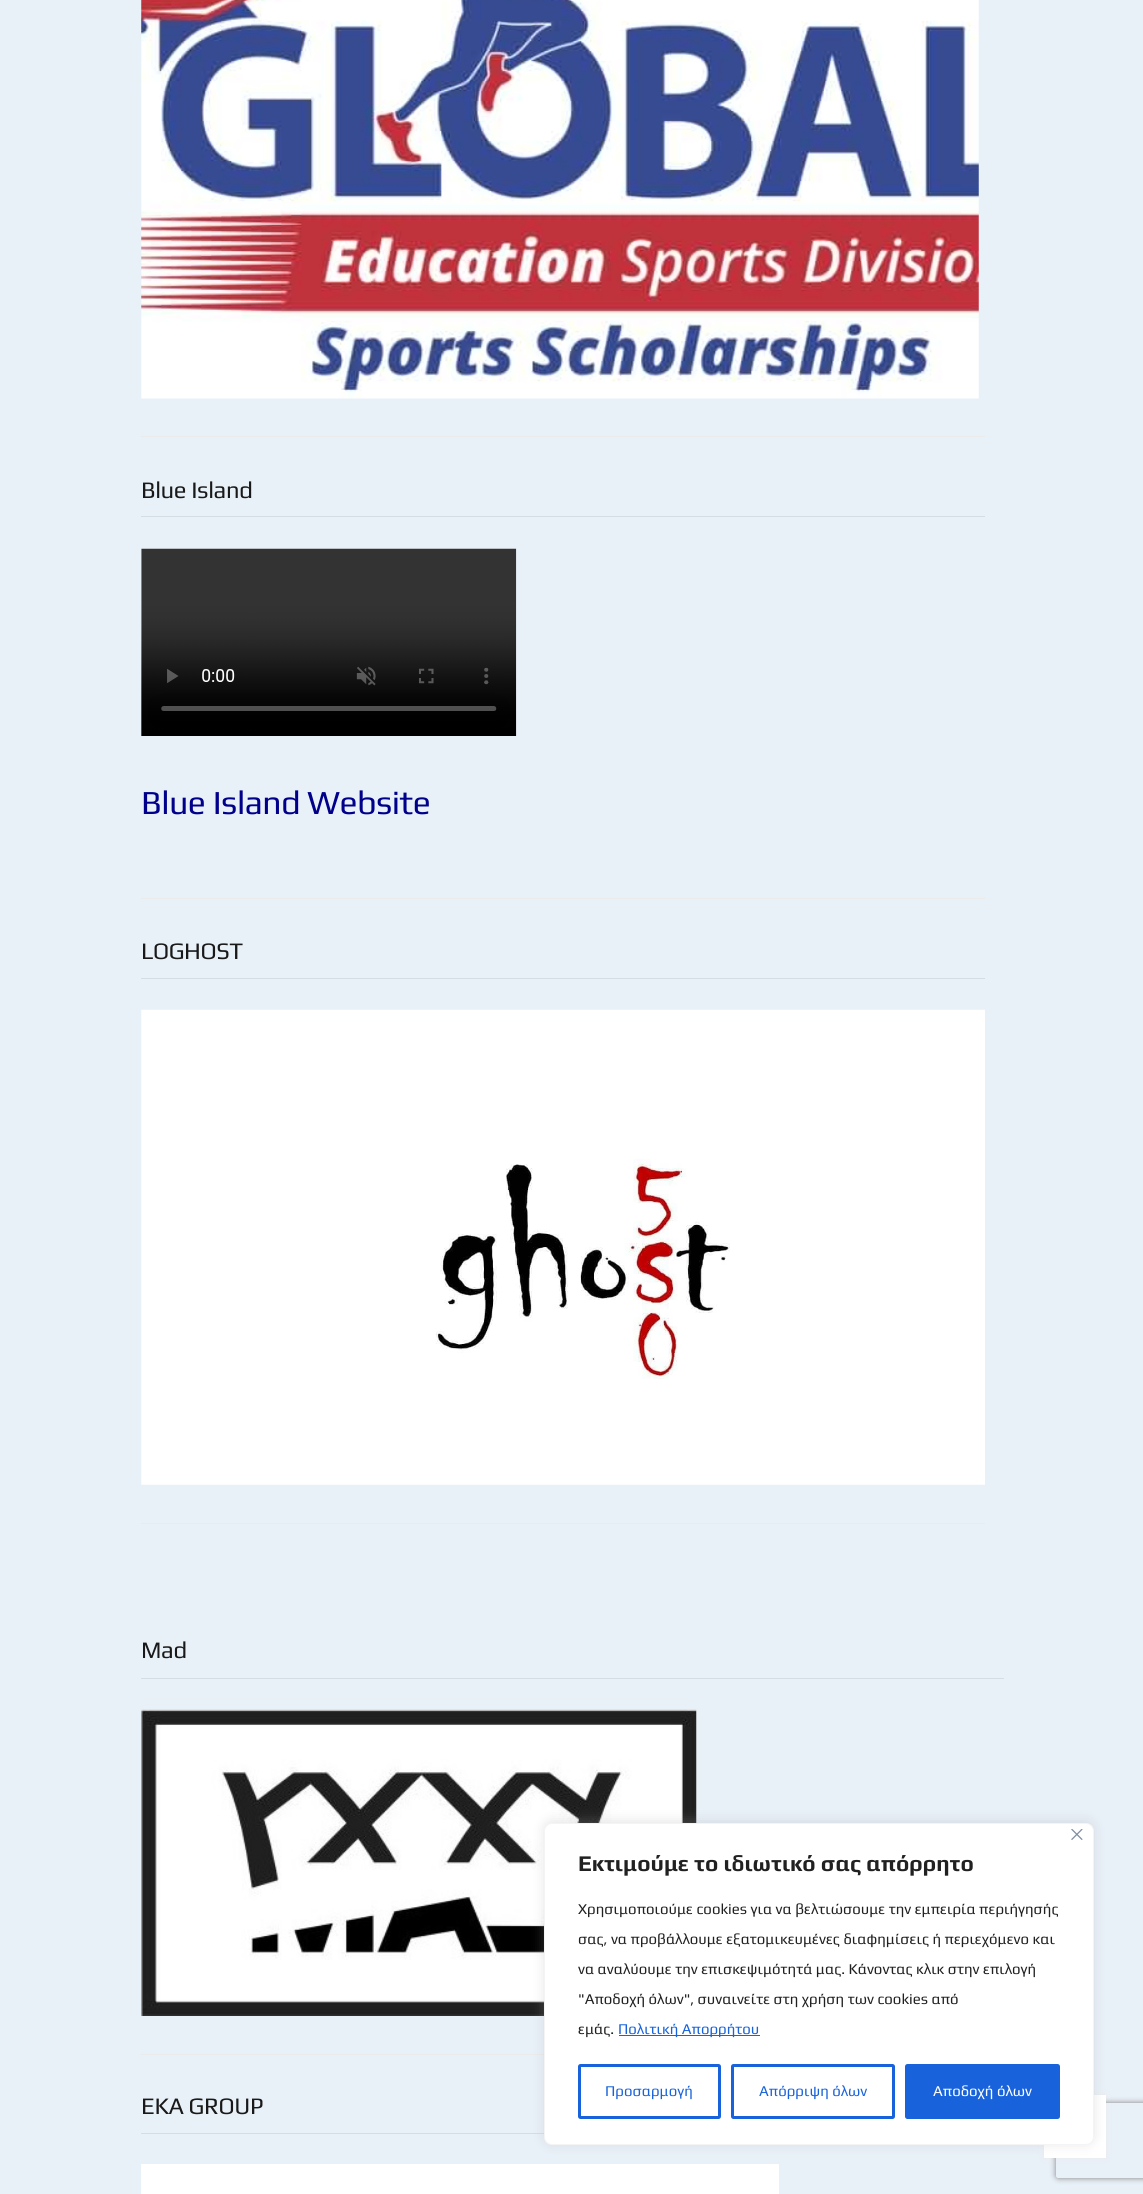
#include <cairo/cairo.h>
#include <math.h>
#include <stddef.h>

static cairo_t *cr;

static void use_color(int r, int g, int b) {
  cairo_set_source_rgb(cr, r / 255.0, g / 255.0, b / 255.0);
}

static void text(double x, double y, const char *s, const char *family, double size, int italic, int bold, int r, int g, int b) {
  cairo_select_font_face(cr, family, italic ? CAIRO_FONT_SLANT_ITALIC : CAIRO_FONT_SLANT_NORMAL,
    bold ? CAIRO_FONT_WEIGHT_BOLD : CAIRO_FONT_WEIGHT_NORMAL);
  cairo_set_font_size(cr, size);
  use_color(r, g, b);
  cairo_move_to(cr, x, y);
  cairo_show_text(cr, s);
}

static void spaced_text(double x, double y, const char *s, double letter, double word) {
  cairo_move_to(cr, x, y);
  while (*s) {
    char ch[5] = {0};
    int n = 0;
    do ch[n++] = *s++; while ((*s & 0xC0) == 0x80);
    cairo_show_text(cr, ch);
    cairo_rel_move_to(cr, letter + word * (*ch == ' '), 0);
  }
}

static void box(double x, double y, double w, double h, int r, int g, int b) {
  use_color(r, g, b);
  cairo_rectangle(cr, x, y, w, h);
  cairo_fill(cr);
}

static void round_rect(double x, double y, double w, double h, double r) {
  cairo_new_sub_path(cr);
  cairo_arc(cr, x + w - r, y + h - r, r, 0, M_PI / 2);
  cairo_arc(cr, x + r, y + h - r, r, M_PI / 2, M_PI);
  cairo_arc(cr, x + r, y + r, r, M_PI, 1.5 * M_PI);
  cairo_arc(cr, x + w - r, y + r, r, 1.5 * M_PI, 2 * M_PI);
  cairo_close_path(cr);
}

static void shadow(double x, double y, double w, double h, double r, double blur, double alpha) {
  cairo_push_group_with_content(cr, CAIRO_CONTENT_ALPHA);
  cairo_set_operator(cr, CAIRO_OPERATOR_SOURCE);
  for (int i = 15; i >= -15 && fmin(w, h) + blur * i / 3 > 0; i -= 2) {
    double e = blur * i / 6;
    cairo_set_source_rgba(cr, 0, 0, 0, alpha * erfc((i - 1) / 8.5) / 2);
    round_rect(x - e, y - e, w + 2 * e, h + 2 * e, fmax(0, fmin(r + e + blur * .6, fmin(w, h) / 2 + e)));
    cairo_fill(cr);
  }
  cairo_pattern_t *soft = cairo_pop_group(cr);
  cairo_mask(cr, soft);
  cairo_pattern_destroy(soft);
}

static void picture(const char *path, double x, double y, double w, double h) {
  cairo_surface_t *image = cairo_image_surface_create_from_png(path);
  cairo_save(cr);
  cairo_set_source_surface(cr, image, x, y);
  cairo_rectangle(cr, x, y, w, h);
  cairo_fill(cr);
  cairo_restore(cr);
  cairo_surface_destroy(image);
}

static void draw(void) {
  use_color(232, 240, 248);
  cairo_paint(cr);
  box(141, 436, 844, 1, 235, 235, 235);
  picture("img_01.png", 141, 0, 838, 399);
  box(141, 898, 844, 1, 235, 235, 235);
  box(141, 516, 844, 1, 213, 221, 228);
  picture("img_02.png", 141, 548, 376, 188);
  box(141, 1523, 844, 1, 235, 235, 235);
  box(141, 978, 844, 1, 213, 221, 228);
  picture("img_03.png", 141, 1009, 844, 476);
  box(141, 2054, 403, 1, 235, 235, 235);
  box(141, 1678, 863, 1, 213, 221, 228);
  picture("img_04.png", 141, 1709, 556, 307);
  box(141, 2133, 403, 1, 213, 221, 228);
  box(141, 2164, 638, 30, 255, 255, 255);
  use_color(235, 235, 235);
  shadow(1044, 2095, 62, 63, 0, 3, 1);
  cairo_save(cr);
  cairo_set_fill_rule(cr, CAIRO_FILL_RULE_EVEN_ODD);
  cairo_new_path(cr);
  cairo_move_to(cr, 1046, 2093);
  cairo_line_to(cr, 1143, 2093);
  cairo_line_to(cr, 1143, 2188);
  cairo_line_to(cr, 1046, 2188);
  cairo_close_path(cr);
  cairo_move_to(cr, 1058.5, 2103);
  cairo_line_to(cr, 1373.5, 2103);
  cairo_curve_to(cr, 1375, 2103, 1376, 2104, 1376, 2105.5);
  cairo_line_to(cr, 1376, 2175.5);
  cairo_curve_to(cr, 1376, 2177, 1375, 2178, 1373.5, 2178);
  cairo_line_to(cr, 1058.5, 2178);
  cairo_curve_to(cr, 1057, 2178, 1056, 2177, 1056, 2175.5);
  cairo_line_to(cr, 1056, 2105.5);
  cairo_curve_to(cr, 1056, 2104, 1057, 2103, 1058.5, 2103);
  cairo_close_path(cr);
  cairo_clip(cr);
  use_color(128, 128, 128);
  shadow(1056, 2103, 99, 75, 2.5, 3, 1);
  cairo_restore(cr);
  box(1044, 2095, 62, 63, 255, 255, 255);
  use_color(172, 171, 171);
  shadow(544, 1821, 550, 323, 8, 6, 0.3);
  use_color(255, 255, 255);
  round_rect(544.5, 1823.5, 549, 321, 7.5);
  cairo_fill_preserve(cr);
  use_color(244, 244, 244);
  cairo_set_line_width(cr, 1);
  cairo_stroke(cr);
  picture("img_05.png", 1071, 1829, 12, 11);
  box(619, 2035, 141, 1, 24, 99, 220);
  round_rect(579.5, 2065.5, 140, 52, 1);
  cairo_set_line_width(cr, 3);
  cairo_stroke(cr);
  round_rect(732.5, 2065.5, 161, 52, 1);
  cairo_stroke(cr);
  round_rect(906.5, 2065.5, 152, 52, 1);
  cairo_fill_preserve(cr);
  cairo_stroke(cr);
  cairo_select_font_face(cr, "Play", CAIRO_FONT_SLANT_NORMAL, CAIRO_FONT_WEIGHT_NORMAL);
  cairo_set_font_size(cr, 23.75);
  use_color(25, 25, 25);
  spaced_text(141, 498, "Blue Island", -0.4, 0);
  cairo_set_font_size(cr, 33.75);
  use_color(0, 0, 139);
  spaced_text(141, 814, "Blue Island Website", -0.5, 0);
  cairo_set_font_size(cr, 23.75);
  use_color(25, 25, 25);
  spaced_text(141, 959, "LOGHOST", -0.4, 0);
  spaced_text(141, 1658, "Mad", -0.4, 0);
  spaced_text(141, 2114, "EKA GROUP", -0.4, 0);
  text(578, 1871, "Εκτιμούμε το ιδιωτικό σας απόρρητο", "Play", 22.5, 0, 1, 33, 33, 33);
  text(578, 1914, "Χρησιμοποιούμε cookies για να βελτιώσουμε την εμπειρία περιήγησής", "Play", 15, 0, 0, 33, 33, 33);
  text(578, 1944, "σας, να προβάλλουμε εξατομικευμένες διαφημίσεις ή περιεχόμενο και", "Play", 15, 0, 0, 33, 33, 33);
  text(578, 1974, "να αναλύουμε την επισκεψιμότητά μας. Κάνοντας κλικ στην επιλογή", "Play", 15, 0, 0, 33, 33, 33);
  text(578, 2004, "\"Αποδοχή όλων\", συναινείτε στη χρήση των cookies από", "Play", 15, 0, 0, 33, 33, 33);
  text(578, 2034, "εμάς.", "Play", 15, 0, 0, 33, 33, 33);
  text(618, 2034, "Πολιτική Απορρήτου", "Play", 15, 0, 0, 24, 99, 220);
  text(605, 2096, "Προσαρμογή", "Play", 15, 0, 0, 24, 99, 220);
  text(759, 2096, "Απόρριψη όλων", "Play", 15, 0, 0, 24, 99, 220);
  text(933, 2096, "Αποδοχή όλων", "Play", 15, 0, 0, 255, 255, 255);
}

int main(void) {
  cairo_surface_t *surface = cairo_image_surface_create(CAIRO_FORMAT_RGB24, 1143, 2194);
  cr = cairo_create(surface);
  cairo_font_options_t *options = cairo_font_options_create();
  cairo_font_options_set_hint_metrics(options, CAIRO_HINT_METRICS_OFF);
  cairo_font_options_set_hint_style(options, CAIRO_HINT_STYLE_NONE);
  cairo_set_font_options(cr, options);
  cairo_set_miter_limit(cr, 4);
  draw();
  cairo_surface_write_to_png(surface, "out.png");
  cairo_font_options_destroy(options);
  cairo_destroy(cr);
  cairo_surface_destroy(surface);
  return 0;
}
